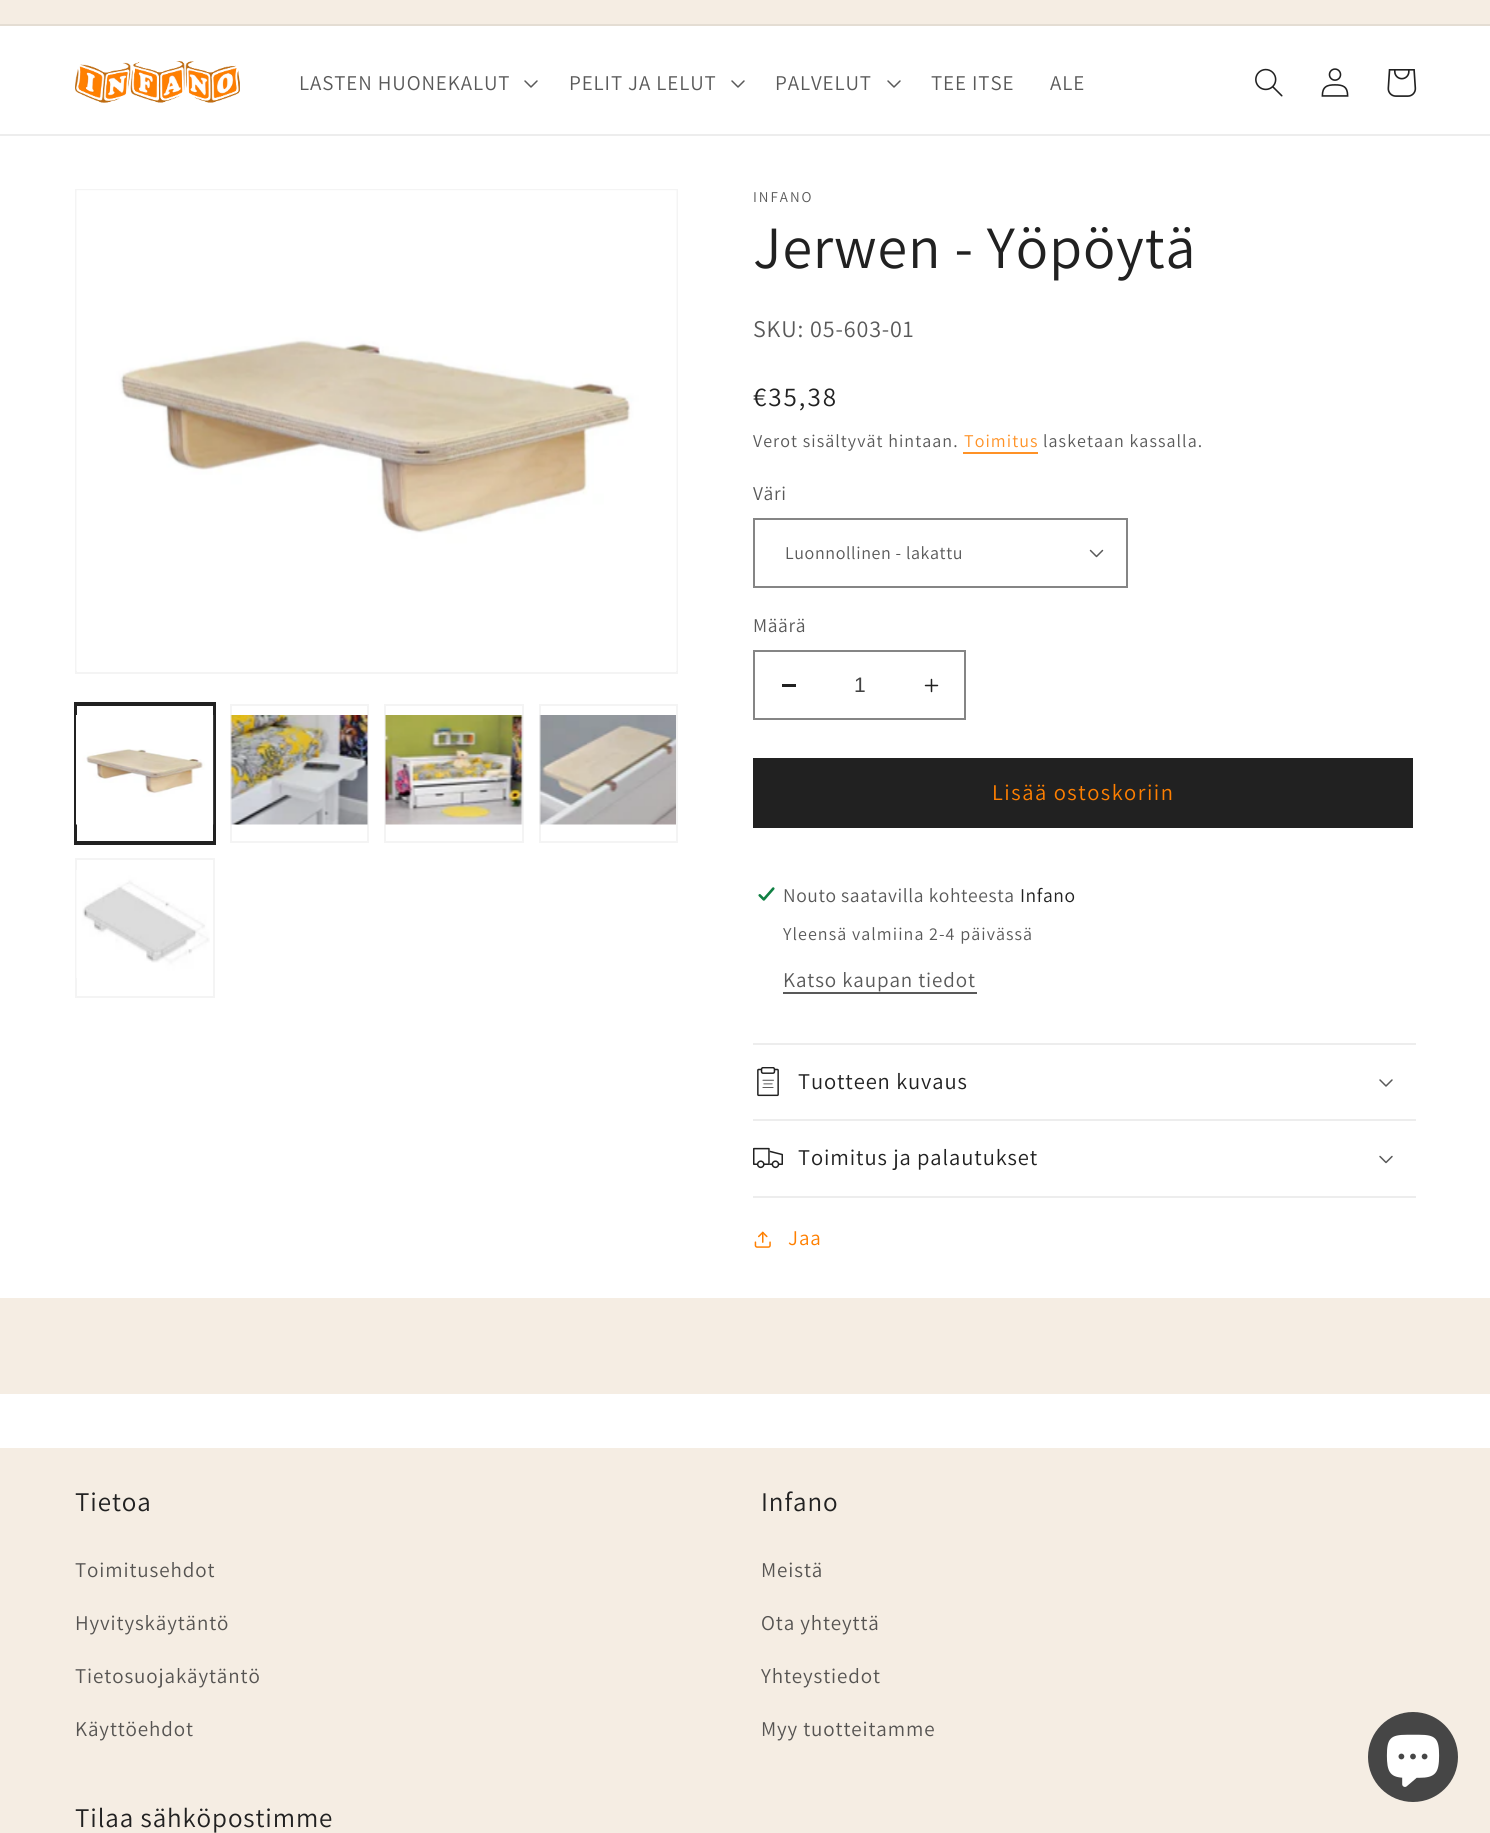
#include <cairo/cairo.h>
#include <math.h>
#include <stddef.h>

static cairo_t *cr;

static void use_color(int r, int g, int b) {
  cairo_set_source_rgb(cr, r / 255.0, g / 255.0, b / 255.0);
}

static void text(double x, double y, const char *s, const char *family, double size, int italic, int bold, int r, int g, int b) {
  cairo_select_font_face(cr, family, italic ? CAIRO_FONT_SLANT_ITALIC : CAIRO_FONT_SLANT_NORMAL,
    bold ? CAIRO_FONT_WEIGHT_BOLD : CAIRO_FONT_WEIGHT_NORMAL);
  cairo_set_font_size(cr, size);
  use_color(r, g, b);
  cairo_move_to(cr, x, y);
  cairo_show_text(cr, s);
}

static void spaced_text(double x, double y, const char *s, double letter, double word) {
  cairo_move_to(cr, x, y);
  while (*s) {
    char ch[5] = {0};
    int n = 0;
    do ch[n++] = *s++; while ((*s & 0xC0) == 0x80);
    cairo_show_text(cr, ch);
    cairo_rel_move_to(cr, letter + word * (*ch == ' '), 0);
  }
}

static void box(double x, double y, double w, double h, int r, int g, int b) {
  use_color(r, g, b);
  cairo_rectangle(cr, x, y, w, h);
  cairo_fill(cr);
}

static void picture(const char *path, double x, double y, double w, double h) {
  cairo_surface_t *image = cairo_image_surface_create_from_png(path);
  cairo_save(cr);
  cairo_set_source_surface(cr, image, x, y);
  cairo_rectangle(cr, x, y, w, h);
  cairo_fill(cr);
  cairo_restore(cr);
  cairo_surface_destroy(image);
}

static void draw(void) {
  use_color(255, 255, 255);
  cairo_paint(cr);
  box(0, 0, 1490, 24, 245, 237, 227);
  box(0, 24, 1490, 2, 228, 221, 211);
  box(0, 134, 1490, 2, 237, 237, 237);
  picture("img_01.png", 75, 61, 165, 42);
  picture("img_02.png", 524, 80, 14, 8);
  picture("img_02.png", 731, 80, 14, 8);
  picture("img_02.png", 887, 80, 14, 8);
  picture("img_03.png", 1255, 68, 28, 29);
  picture("img_04.png", 1321, 68, 28, 29);
  picture("img_05.png", 1387, 69, 30, 28);
  cairo_rectangle(cr, 76, 190, 601, 483);
  use_color(244, 244, 244);
  cairo_stroke(cr);
  picture("img_06.png", 76, 190, 601, 481);
  cairo_rectangle(cr, 75, 703, 140, 141);
  use_color(33, 33, 33);
  cairo_stroke(cr);
  cairo_rectangle(cr, 76, 705, 138, 137);
  cairo_stroke(cr);
  picture("img_07.png", 76, 715, 138, 110);
  cairo_rectangle(cr, 231, 705, 137, 137);
  use_color(244, 244, 244);
  cairo_stroke(cr);
  picture("img_08.png", 230, 715, 138, 110);
  cairo_rectangle(cr, 385, 705, 138, 137);
  cairo_stroke(cr);
  picture("img_09.png", 385, 715, 138, 110);
  cairo_rectangle(cr, 540, 705, 137, 137);
  cairo_stroke(cr);
  picture("img_10.png", 539, 715, 137, 110);
  cairo_rectangle(cr, 76, 859, 138, 138);
  cairo_stroke(cr);
  picture("img_11.png", 76, 870, 134, 108);
  box(963, 452, 75, 2, 255, 146, 38);
  picture("img_12.png", 1089, 549, 15, 9);
  cairo_rectangle(cr, 754, 519, 373, 68);
  use_color(133, 133, 133);
  cairo_stroke(cr);
  box(782, 684, 14, 3, 33, 33, 33);
  picture("img_13.png", 924, 678, 15, 15);
  cairo_rectangle(cr, 754, 651, 211, 68);
  use_color(133, 133, 133);
  cairo_stroke(cr);
  box(753, 758, 660, 70, 33, 33, 33);
  picture("img_14.png", 757, 887, 18, 14);
  box(783, 992, 194, 2, 89, 89, 89);
  box(753, 1043, 663, 2, 237, 237, 237);
  box(753, 1119, 663, 2, 237, 237, 237);
  picture("img_15.png", 757, 1067, 22, 30);
  picture("img_02.png", 1379, 1079, 14, 8);
  box(753, 1196, 663, 2, 237, 237, 237);
  picture("img_16.png", 753, 1147, 30, 22);
  picture("img_17.png", 1379, 1155, 14, 9);
  picture("img_18.png", 754, 1231, 17, 17);
  box(0, 1298, 1490, 96, 245, 237, 227);
  box(0, 1448, 1490, 385, 245, 237, 227);
  use_color(70, 70, 70);
  cairo_arc(cr, 1413, 1757, 45, 0, 2 * M_PI);
  cairo_fill(cr);
  picture("img_19.png", 1386, 1734, 54, 53);
  cairo_select_font_face(cr, "Assistant", CAIRO_FONT_SLANT_NORMAL, CAIRO_FONT_WEIGHT_NORMAL);
  cairo_set_font_size(cr, 21);
  use_color(89, 89, 89);
  spaced_text(299, 90, "LASTEN HUONEKALUT", 0.9, 0);
  spaced_text(569, 90, "PELIT JA LELUT", 0.9, 0);
  spaced_text(775, 90, "PALVELUT", 0.9, 0);
  spaced_text(931, 90, "TEE ITSE", 0.9, 0);
  spaced_text(1050, 90, "ALE", 0.9, 0);
  cairo_set_font_size(cr, 15);
  spaced_text(753, 202, "INFANO", 2, 0);
  cairo_set_font_size(cr, 60);
  use_color(33, 33, 33);
  spaced_text(753, 268, "Jerwen - Yöpöytä", 0.9, 0);
  cairo_set_font_size(cr, 24);
  use_color(89, 89, 89);
  spaced_text(753, 337, "SKU: 05-603-01", 0.9, 0);
  cairo_set_font_size(cr, 27);
  use_color(33, 33, 33);
  spaced_text(753, 406, "€35,38", 2, 0);
  cairo_set_font_size(cr, 18);
  use_color(89, 89, 89);
  spaced_text(753, 447, "Verot sisältyvät hintaan.", 1.05, 0);
  use_color(255, 146, 38);
  spaced_text(964, 447, "Toimitus", 1.05, 0);
  use_color(89, 89, 89);
  spaced_text(1043, 447, "lasketaan kassalla.", 1.05, 0);
  cairo_set_font_size(cr, 19.5);
  spaced_text(753, 500, "Väri", 0.6, 0);
  cairo_set_font_size(cr, 18);
  spaced_text(785, 559, "Luonnollinen - lakattu", 0.6, 0);
  cairo_set_font_size(cr, 19.5);
  spaced_text(753, 632, "Määrä", 0.6, 0);
  text(854, 692, "1", "Liberation Sans", 21, 0, 0, 66, 66, 66);
  cairo_select_font_face(cr, "Assistant", CAIRO_FONT_SLANT_NORMAL, CAIRO_FONT_WEIGHT_NORMAL);
  cairo_set_font_size(cr, 22.5);
  use_color(255, 127, 0);
  spaced_text(992, 800, "Lisää ostoskoriin", 1.5, 0);
  cairo_set_font_size(cr, 19.5);
  use_color(89, 89, 89);
  spaced_text(783, 902, "Nouto saatavilla kohteesta", 0.6, 0);
  use_color(33, 33, 33);
  spaced_text(1020, 902, "Infano", 0.6, 0);
  cairo_set_font_size(cr, 18);
  use_color(89, 89, 89);
  spaced_text(783, 940, "Yleensä valmiina 2-4 päivässä", 1.05, 0);
  cairo_set_font_size(cr, 21);
  spaced_text(783, 987, "Katso kaupan tiedot", 0.9, 0);
  cairo_set_font_size(cr, 22.5);
  use_color(33, 33, 33);
  spaced_text(798, 1089, "Tuotteen kuvaus", 0.9, 0);
  spaced_text(798, 1165, "Toimitus ja palautukset", 0.9, 0);
  cairo_set_font_size(cr, 21);
  use_color(255, 127, 0);
  spaced_text(788, 1245, "Jaa", 0.9, 0);
  cairo_set_font_size(cr, 27);
  use_color(33, 33, 33);
  spaced_text(75, 1511, "Tietoa", 0.9, 0);
  cairo_set_font_size(cr, 21);
  use_color(86, 84, 82);
  spaced_text(75, 1577, "Toimitusehdot", 0.9, 0);
  spaced_text(75, 1630, "Hyvityskäytäntö", 0.9, 0);
  spaced_text(75, 1683, "Tietosuojakäytäntö", 0.9, 0);
  spaced_text(75, 1736, "Käyttöehdot", 0.9, 0);
  cairo_set_font_size(cr, 27);
  use_color(33, 33, 33);
  spaced_text(761, 1511, "Infano", 0.9, 0);
  cairo_set_font_size(cr, 21);
  use_color(86, 84, 82);
  spaced_text(761, 1577, "Meistä", 0.9, 0);
  spaced_text(761, 1630, "Ota yhteyttä", 0.9, 0);
  spaced_text(761, 1683, "Yhteystiedot", 0.9, 0);
  spaced_text(761, 1736, "Myy tuotteitamme", 0.9, 0);
  cairo_set_font_size(cr, 27);
  use_color(33, 33, 33);
  spaced_text(75, 1827, "Tilaa sähköpostimme", 0.9, 0);
}

int main(void) {
  cairo_surface_t *surface = cairo_image_surface_create(CAIRO_FORMAT_RGB24, 1490, 1833);
  cr = cairo_create(surface);
  cairo_font_options_t *options = cairo_font_options_create();
  cairo_font_options_set_hint_metrics(options, CAIRO_HINT_METRICS_OFF);
  cairo_font_options_set_hint_style(options, CAIRO_HINT_STYLE_NONE);
  cairo_set_font_options(cr, options);
  cairo_set_miter_limit(cr, 4);
  draw();
  cairo_surface_write_to_png(surface, "out.png");
  cairo_font_options_destroy(options);
  cairo_destroy(cr);
  cairo_surface_destroy(surface);
  return 0;
}
